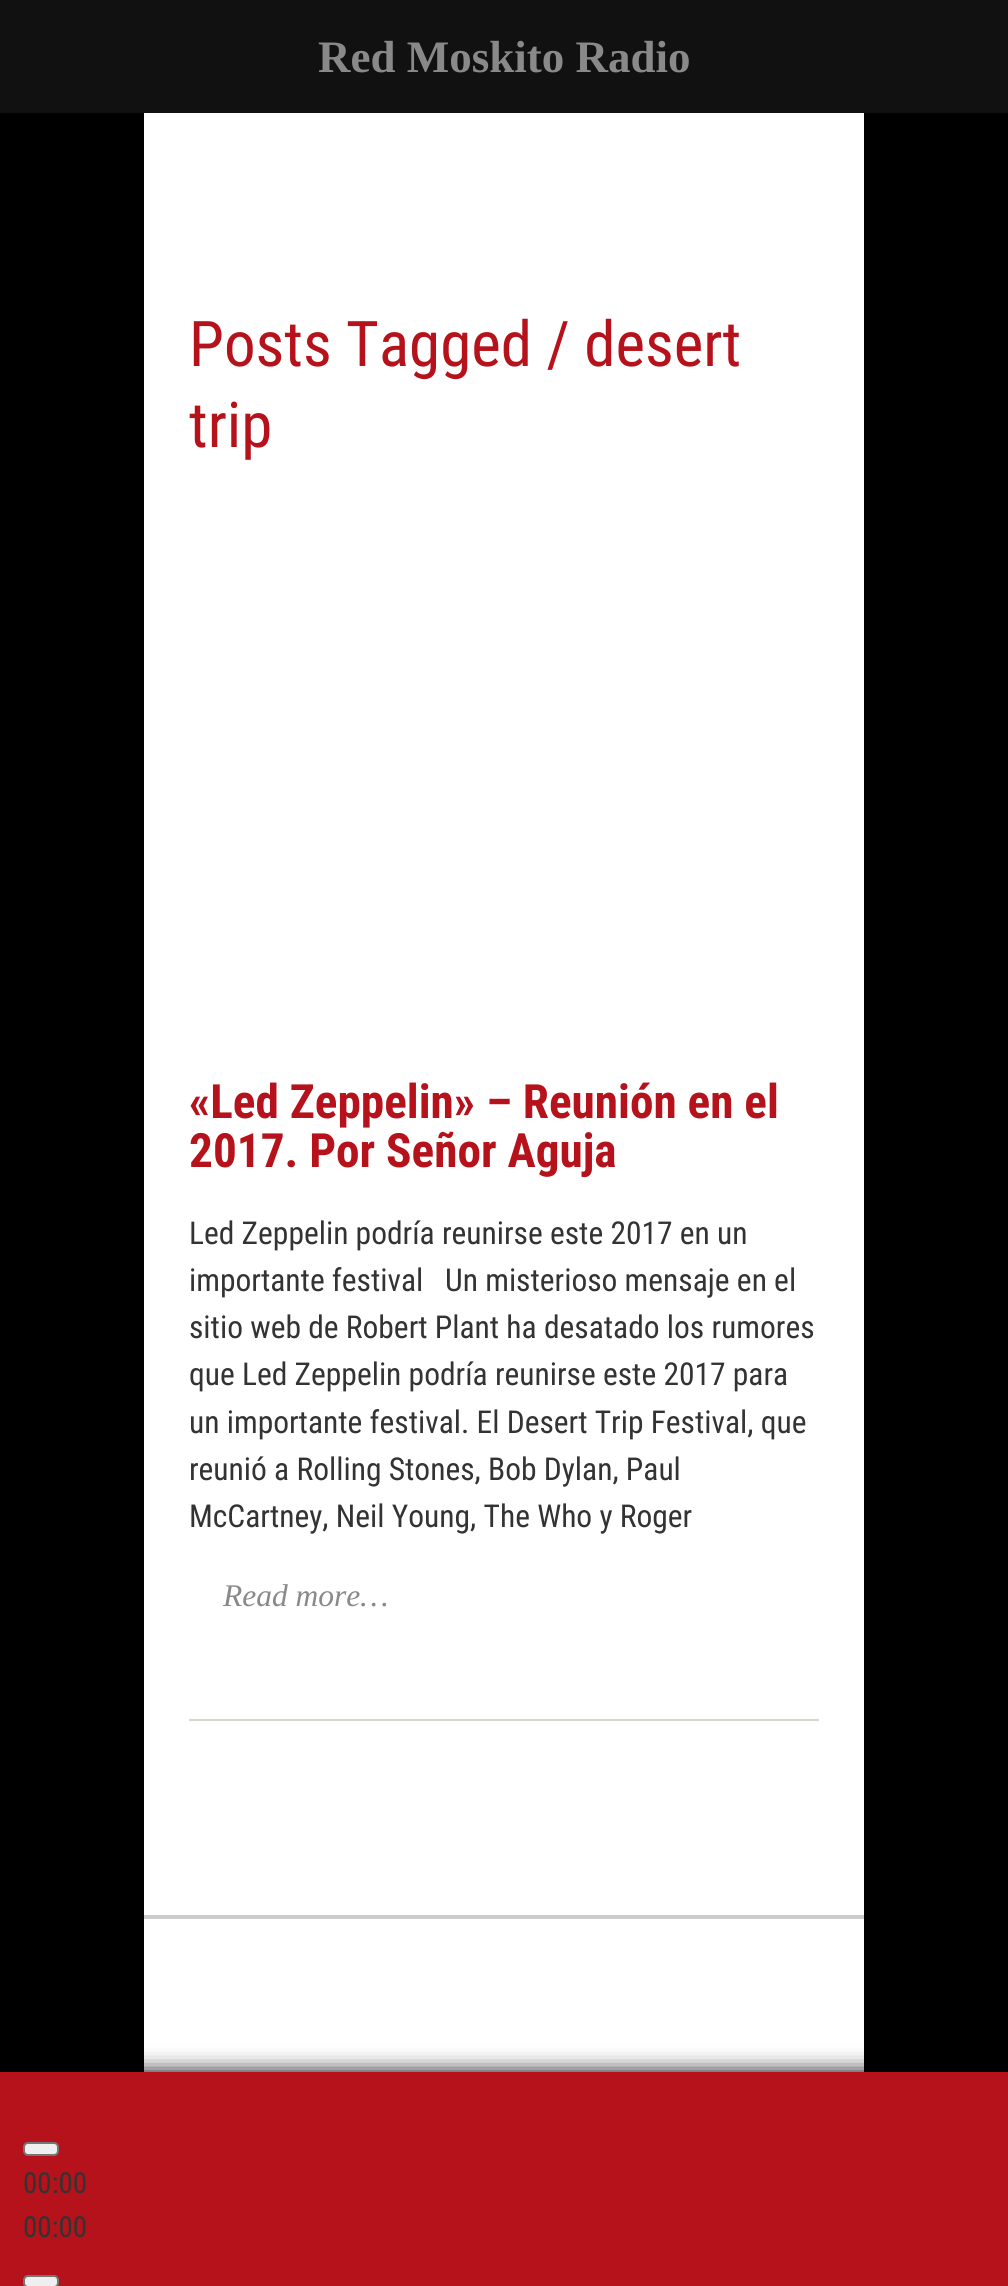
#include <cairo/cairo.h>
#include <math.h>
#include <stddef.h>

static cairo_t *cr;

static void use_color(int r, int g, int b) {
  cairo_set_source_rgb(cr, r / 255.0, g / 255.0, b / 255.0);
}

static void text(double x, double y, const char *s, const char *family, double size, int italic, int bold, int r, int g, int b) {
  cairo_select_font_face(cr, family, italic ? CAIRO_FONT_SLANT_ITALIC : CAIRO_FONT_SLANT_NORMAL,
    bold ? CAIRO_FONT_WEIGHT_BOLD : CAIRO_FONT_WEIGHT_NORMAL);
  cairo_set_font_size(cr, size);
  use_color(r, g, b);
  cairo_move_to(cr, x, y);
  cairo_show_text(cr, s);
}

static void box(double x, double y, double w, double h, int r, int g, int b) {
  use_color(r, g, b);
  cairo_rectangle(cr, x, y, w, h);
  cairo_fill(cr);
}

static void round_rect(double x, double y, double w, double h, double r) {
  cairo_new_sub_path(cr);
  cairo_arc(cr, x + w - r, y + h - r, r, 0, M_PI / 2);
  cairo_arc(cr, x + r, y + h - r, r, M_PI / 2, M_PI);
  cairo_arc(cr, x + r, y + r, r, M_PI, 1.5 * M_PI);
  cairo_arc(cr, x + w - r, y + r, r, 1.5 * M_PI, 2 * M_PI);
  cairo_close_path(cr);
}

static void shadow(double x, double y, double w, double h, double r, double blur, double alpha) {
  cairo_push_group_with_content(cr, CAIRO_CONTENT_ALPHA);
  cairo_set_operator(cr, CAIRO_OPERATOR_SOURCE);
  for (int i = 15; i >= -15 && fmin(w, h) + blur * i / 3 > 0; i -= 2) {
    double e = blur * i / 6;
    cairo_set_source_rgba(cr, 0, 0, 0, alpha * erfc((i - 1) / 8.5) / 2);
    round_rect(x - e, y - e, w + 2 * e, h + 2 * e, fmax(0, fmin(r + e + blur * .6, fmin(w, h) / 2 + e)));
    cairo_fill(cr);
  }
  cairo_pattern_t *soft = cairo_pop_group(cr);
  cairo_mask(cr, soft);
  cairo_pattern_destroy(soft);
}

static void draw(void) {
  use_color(0, 0, 0);
  cairo_paint(cr);
  box(0, 0, 1008, 113, 17, 17, 17);
  box(144, 113, 720, 1959, 255, 255, 255);
  box(189, 1719, 630, 2, 216, 213, 205);
  box(144, 1915, 720, 4, 204, 204, 204);
  use_color(0, 0, 0);
  shadow(0, 2072, 1008, 214, 0, 11, 1);
  box(0, 2072, 1008, 214, 181, 18, 27);
  use_color(239, 239, 239);
  round_rect(24, 2143, 34, 12, 4);
  cairo_fill_preserve(cr);
  use_color(118, 118, 118);
  cairo_stroke(cr);
  use_color(239, 239, 239);
  round_rect(24, 2276, 34, 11, 4);
  cairo_fill_preserve(cr);
  use_color(118, 118, 118);
  cairo_stroke(cr);
  text(318, 72, "Red Moskito Radio", "Liberation Serif", 45, 0, 1, 137, 137, 137);
  text(189, 366, "Posts Tagged / desert", "Roboto Condensed", 63, 0, 0, 181, 18, 27);
  text(189, 447, "trip", "Roboto Condensed", 63, 0, 0, 181, 18, 27);
  text(189, 1118, "«Led Zeppelin» – Reunión en el", "Roboto Condensed", 47.25, 0, 1, 181, 18, 27);
  text(189, 1167, "2017. Por Señor Aguja", "Roboto Condensed", 47.25, 0, 1, 181, 18, 27);
  text(189, 1244, "Led Zeppelin podría reunirse este 2017 en un", "Roboto Condensed", 31.5, 0, 0, 51, 51, 51);
  text(189, 1291, "importante festival   Un misterioso mensaje en el", "Roboto Condensed", 31.5, 0, 0, 51, 51, 51);
  text(189, 1338, "sitio web de Robert Plant ha desatado los rumores", "Roboto Condensed", 31.5, 0, 0, 51, 51, 51);
  text(189, 1385, "que Led Zeppelin podría reunirse este 2017 para", "Roboto Condensed", 31.5, 0, 0, 51, 51, 51);
  text(189, 1433, "un importante festival. El Desert Trip Festival, que", "Roboto Condensed", 31.5, 0, 0, 51, 51, 51);
  text(189, 1480, "reunió a Rolling Stones, Bob Dylan, Paul", "Roboto Condensed", 31.5, 0, 0, 51, 51, 51);
  text(189, 1527, "McCartney, Neil Young, The Who y Roger", "Roboto Condensed", 31.5, 0, 0, 51, 51, 51);
  text(223, 1606, "Read more…", "Liberation Serif", 31.5, 1, 0, 137, 137, 137);
  text(23, 2193, "00:00", "Roboto Condensed", 29, 0, 0, 51, 51, 51);
  text(23, 2237, "00:00", "Roboto Condensed", 29, 0, 0, 51, 51, 51);
}

int main(void) {
  cairo_surface_t *surface = cairo_image_surface_create(CAIRO_FORMAT_RGB24, 1008, 2286);
  cr = cairo_create(surface);
  cairo_font_options_t *options = cairo_font_options_create();
  cairo_font_options_set_hint_metrics(options, CAIRO_HINT_METRICS_OFF);
  cairo_font_options_set_hint_style(options, CAIRO_HINT_STYLE_NONE);
  cairo_set_font_options(cr, options);
  cairo_set_miter_limit(cr, 4);
  draw();
  cairo_surface_write_to_png(surface, "out.png");
  cairo_font_options_destroy(options);
  cairo_destroy(cr);
  cairo_surface_destroy(surface);
  return 0;
}
